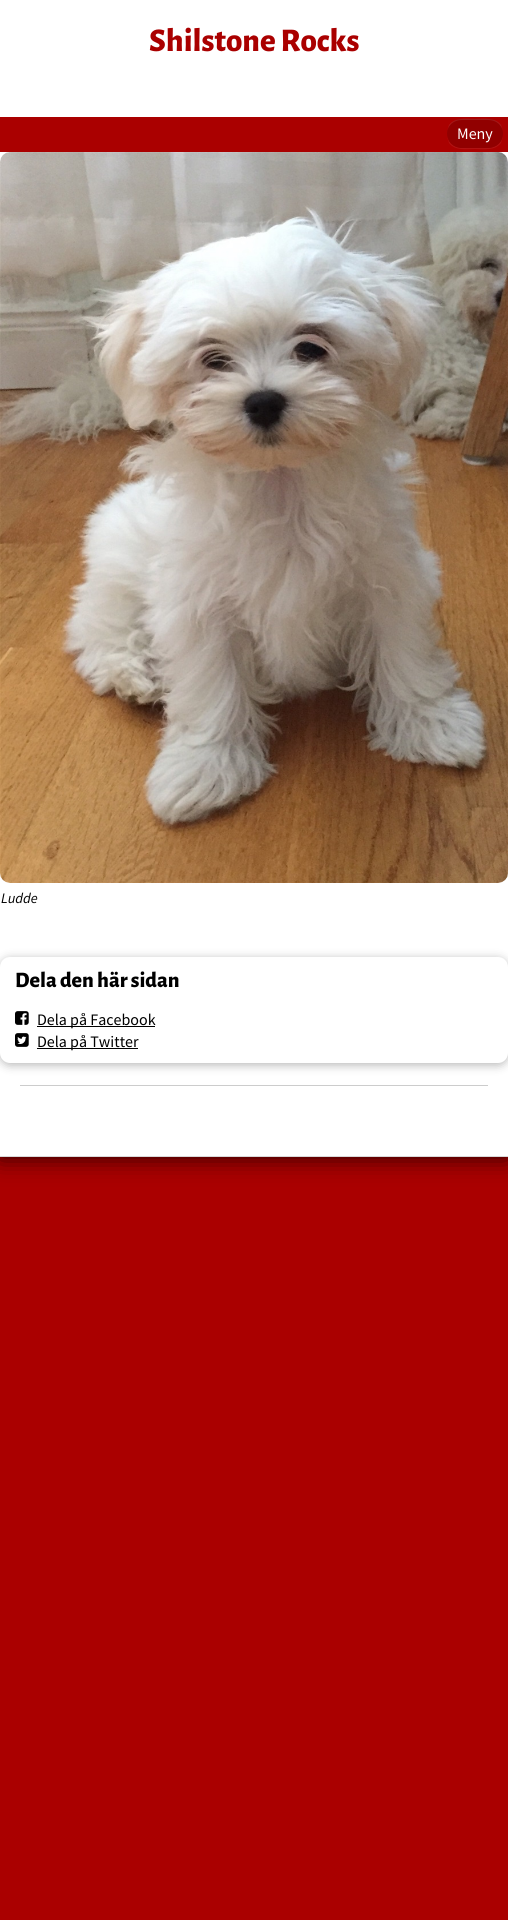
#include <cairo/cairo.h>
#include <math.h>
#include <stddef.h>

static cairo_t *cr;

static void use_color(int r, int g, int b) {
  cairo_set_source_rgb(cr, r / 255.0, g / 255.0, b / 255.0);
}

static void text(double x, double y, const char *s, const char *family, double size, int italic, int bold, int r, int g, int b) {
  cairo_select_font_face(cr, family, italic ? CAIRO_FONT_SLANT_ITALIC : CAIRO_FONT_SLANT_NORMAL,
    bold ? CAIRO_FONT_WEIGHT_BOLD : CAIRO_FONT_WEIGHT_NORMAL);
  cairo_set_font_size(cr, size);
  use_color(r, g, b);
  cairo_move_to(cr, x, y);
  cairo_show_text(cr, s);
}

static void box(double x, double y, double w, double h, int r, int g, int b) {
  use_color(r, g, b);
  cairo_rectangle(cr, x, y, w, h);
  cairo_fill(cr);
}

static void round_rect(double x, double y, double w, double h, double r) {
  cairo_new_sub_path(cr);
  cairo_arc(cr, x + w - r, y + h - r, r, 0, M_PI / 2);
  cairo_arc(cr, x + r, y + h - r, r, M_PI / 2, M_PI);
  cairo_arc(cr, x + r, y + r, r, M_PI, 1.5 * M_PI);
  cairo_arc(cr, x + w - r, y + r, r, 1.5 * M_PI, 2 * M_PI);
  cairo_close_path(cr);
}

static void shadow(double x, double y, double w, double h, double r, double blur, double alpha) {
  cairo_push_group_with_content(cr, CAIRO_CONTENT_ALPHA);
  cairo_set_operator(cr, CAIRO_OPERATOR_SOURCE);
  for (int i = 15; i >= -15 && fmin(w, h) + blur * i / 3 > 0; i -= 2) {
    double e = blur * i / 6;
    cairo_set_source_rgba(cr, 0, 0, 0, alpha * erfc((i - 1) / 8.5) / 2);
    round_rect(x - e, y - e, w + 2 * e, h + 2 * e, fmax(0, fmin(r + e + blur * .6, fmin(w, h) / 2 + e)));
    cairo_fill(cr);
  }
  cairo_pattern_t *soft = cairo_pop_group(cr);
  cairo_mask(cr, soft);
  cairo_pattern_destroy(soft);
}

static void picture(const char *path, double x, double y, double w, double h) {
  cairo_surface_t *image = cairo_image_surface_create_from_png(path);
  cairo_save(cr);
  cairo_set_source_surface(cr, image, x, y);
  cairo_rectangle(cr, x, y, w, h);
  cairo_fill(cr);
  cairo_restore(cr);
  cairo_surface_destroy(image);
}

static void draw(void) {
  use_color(170, 0, 0);
  cairo_paint(cr);
  use_color(0, 0, 0);
  shadow(0, 0, 508, 1157, 0, 12, 0.8);
  box(0, 0, 508, 1156, 255, 255, 255);
  box(0, 1156, 508, 1, 217, 217, 217);
  box(0, 117, 508, 35, 170, 0, 0);
  use_color(176, 19, 19);
  cairo_new_path(cr);
  cairo_move_to(cr, 447, 134);
  cairo_curve_to(cr, 447, 137, 448, 140, 449, 143);
  cairo_curve_to(cr, 455, 151, 466, 149, 475, 149);
  cairo_curve_to(cr, 484, 149, 495, 151, 501, 143);
  cairo_curve_to(cr, 502, 140, 503, 137, 503, 134);
  cairo_curve_to(cr, 502, 150, 486, 148, 475, 148);
  cairo_curve_to(cr, 464, 148, 448, 150, 447, 134);
  cairo_close_path(cr);
  cairo_fill(cr);
  use_color(145, 0, 0);
  round_rect(447, 119, 56, 29, 14.5);
  cairo_fill(cr);
  cairo_set_source_rgba(cr, 1, 1, 1, 0.1);
  cairo_new_path(cr);
  cairo_move_to(cr, 462, 120);
  cairo_line_to(cr, 488, 120);
  cairo_curve_to(cr, 497, 120, 503, 126, 503, 134);
  cairo_curve_to(cr, 503, 131, 502, 128, 501, 125);
  cairo_curve_to(cr, 495, 117, 484, 119, 475, 119);
  cairo_curve_to(cr, 466, 119, 455, 117, 449, 125);
  cairo_curve_to(cr, 448, 128, 447, 131, 447, 134);
  cairo_curve_to(cr, 447, 126, 453, 120, 462, 120);
  cairo_close_path(cr);
  cairo_fill(cr);
  picture("img_01.png", 0, 152, 508, 731);
  use_color(0, 0, 0);
  shadow(0, 959, 508, 106, 10, 5, 0.29);
  use_color(255, 255, 255);
  round_rect(0, 957, 508, 106, 10);
  cairo_fill(cr);
  picture("img_02.png", 15, 1011, 14, 14);
  box(37, 1026, 118, 1, 0, 0, 0);
  picture("img_03.png", 15, 1033, 14, 14);
  box(37, 1048, 101, 1, 0, 0, 0);
  box(20, 1085, 468, 1, 204, 204, 204);
  text(149, 51, "Shilstone Rocks", "Alegreya Sans ExtraBold", 33, 0, 0, 170, 0, 0);
  text(457, 139, "Meny", "Source Sans Pro", 16, 0, 0, 255, 255, 255);
  text(1, 903, "Ludde", "Source Sans Pro", 14.5, 1, 0, 0, 0, 0);
  text(15, 987, "Dela den här sidan", "Alegreya Sans ExtraBold", 22, 0, 0, 0, 0, 0);
  text(37, 1025, "Dela på Facebook", "Source Sans Pro", 16, 0, 0, 0, 0, 0);
  text(37, 1047, "Dela på Twitter", "Source Sans Pro", 16, 0, 0, 0, 0, 0);
}

int main(void) {
  cairo_surface_t *surface = cairo_image_surface_create(CAIRO_FORMAT_RGB24, 508, 1920);
  cr = cairo_create(surface);
  cairo_font_options_t *options = cairo_font_options_create();
  cairo_font_options_set_hint_metrics(options, CAIRO_HINT_METRICS_OFF);
  cairo_font_options_set_hint_style(options, CAIRO_HINT_STYLE_NONE);
  cairo_set_font_options(cr, options);
  cairo_set_miter_limit(cr, 4);
  draw();
  cairo_surface_write_to_png(surface, "out.png");
  cairo_font_options_destroy(options);
  cairo_destroy(cr);
  cairo_surface_destroy(surface);
  return 0;
}
